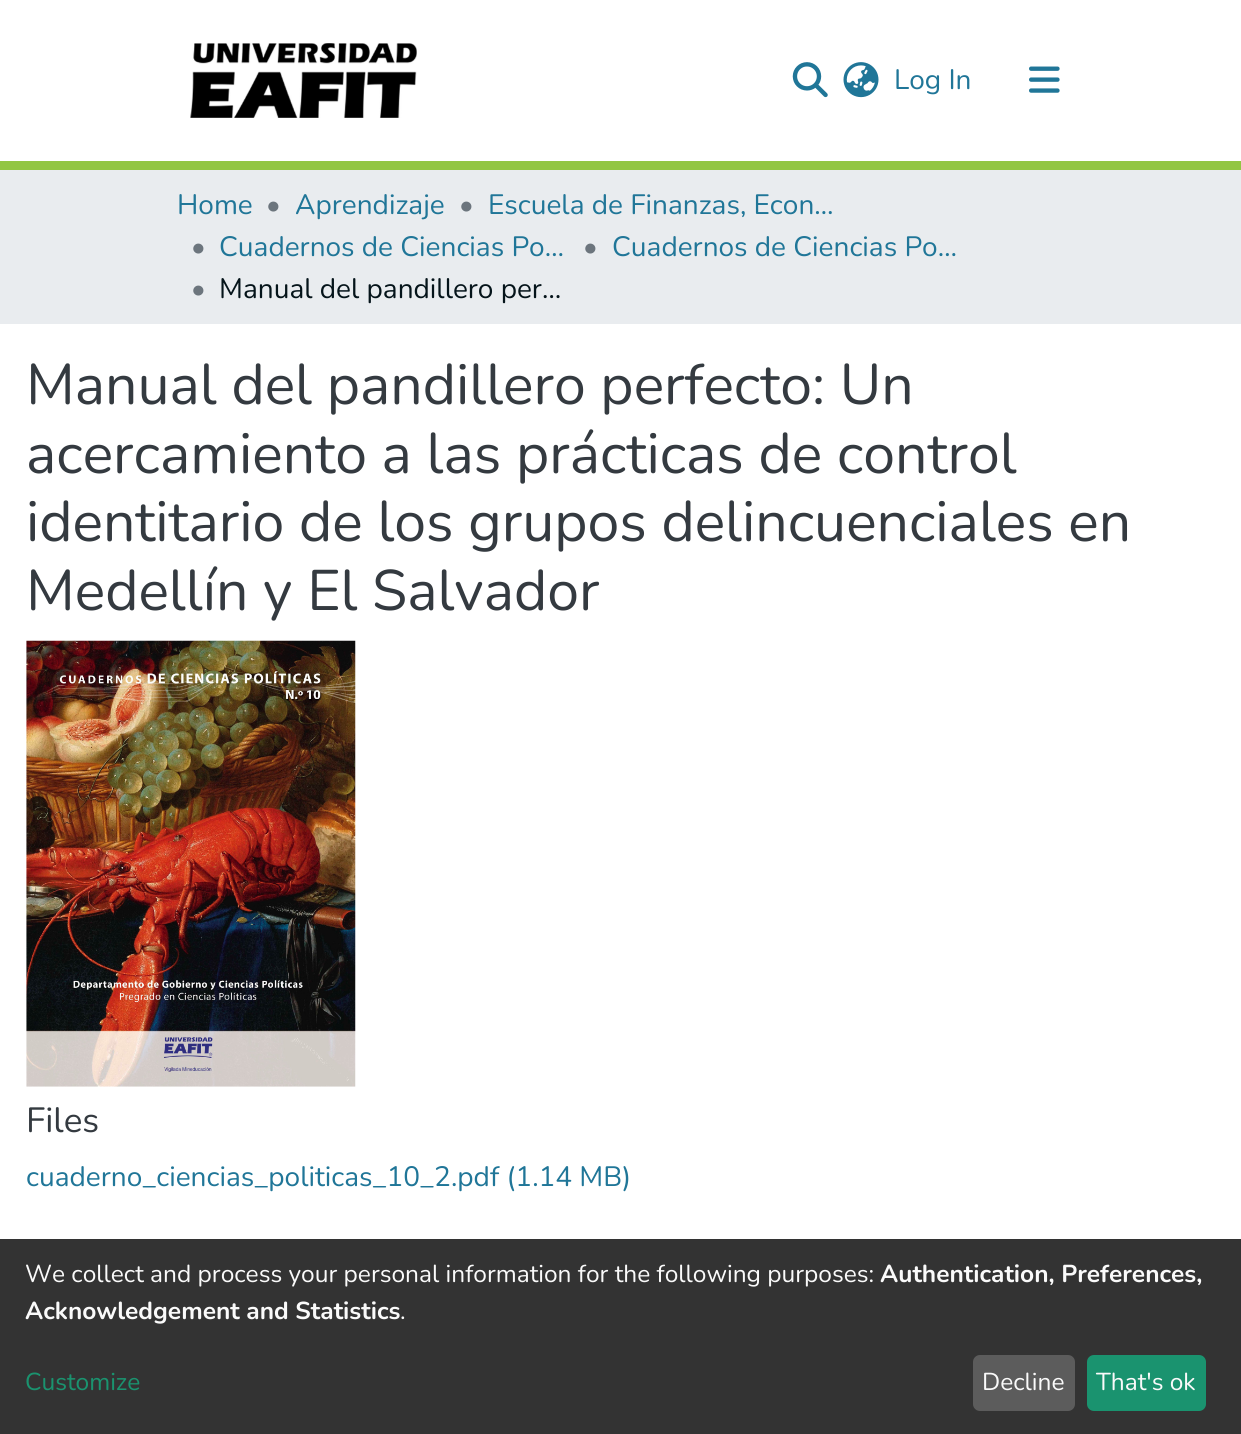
#include <cairo/cairo.h>
#include <math.h>
#include <stddef.h>

static cairo_t *cr;

static void use_color(int r, int g, int b) {
  cairo_set_source_rgb(cr, r / 255.0, g / 255.0, b / 255.0);
}

static void text(double x, double y, const char *s, const char *family, double size, int italic, int bold, int r, int g, int b) {
  cairo_select_font_face(cr, family, italic ? CAIRO_FONT_SLANT_ITALIC : CAIRO_FONT_SLANT_NORMAL,
    bold ? CAIRO_FONT_WEIGHT_BOLD : CAIRO_FONT_WEIGHT_NORMAL);
  cairo_set_font_size(cr, size);
  use_color(r, g, b);
  cairo_move_to(cr, x, y);
  cairo_show_text(cr, s);
}

static void box(double x, double y, double w, double h, int r, int g, int b) {
  use_color(r, g, b);
  cairo_rectangle(cr, x, y, w, h);
  cairo_fill(cr);
}

static void round_rect(double x, double y, double w, double h, double r) {
  cairo_new_sub_path(cr);
  cairo_arc(cr, x + w - r, y + h - r, r, 0, M_PI / 2);
  cairo_arc(cr, x + r, y + h - r, r, M_PI / 2, M_PI);
  cairo_arc(cr, x + r, y + r, r, M_PI, 1.5 * M_PI);
  cairo_arc(cr, x + w - r, y + r, r, 1.5 * M_PI, 2 * M_PI);
  cairo_close_path(cr);
}

static void picture(const char *path, double x, double y, double w, double h) {
  cairo_surface_t *image = cairo_image_surface_create_from_png(path);
  cairo_save(cr);
  cairo_set_source_surface(cr, image, x, y);
  cairo_rectangle(cr, x, y, w, h);
  cairo_fill(cr);
  cairo_restore(cr);
  cairo_surface_destroy(image);
}

static void draw(void) {
  use_color(255, 255, 255);
  cairo_paint(cr);
  box(0, 161, 1241, 9, 146, 198, 66);
  picture("img_01.png", 190, 43, 227, 75);
  picture("img_02.png", 792, 62, 36, 36);
  picture("img_03.png", 843, 62, 36, 36);
  picture("img_04.png", 1029, 66, 31, 27);
  box(0, 170, 1241, 154, 233, 236, 239);
  picture("img_05.png", 26, 640, 330, 447);
  box(0, 1239, 1241, 195, 51, 51, 51);
  use_color(92, 92, 92);
  round_rect(973, 1355, 102, 56, 7);
  cairo_fill(cr);
  use_color(26, 147, 111);
  round_rect(1087, 1355, 119, 56, 7);
  cairo_fill(cr);
  text(894, 89, "Log In", "Nunito", 28, 0, 0, 32, 118, 152);
  text(177, 214, "Home", "Nunito", 28, 0, 0, 32, 118, 152);
  text(266, 214, "•", "Nunito", 28, 0, 0, 108, 117, 125);
  text(295, 214, "Aprendizaje", "Nunito", 28, 0, 0, 32, 118, 152);
  text(459, 214, "•", "Nunito", 28, 0, 0, 108, 117, 125);
  text(488, 214, "Escuela de Finanzas, Econ…", "Nunito", 28, 0, 0, 32, 118, 152);
  text(191, 256, "•", "Nunito", 28, 0, 0, 108, 117, 125);
  text(219, 256, "Cuadernos de Ciencias Po…", "Nunito", 28, 0, 0, 32, 118, 152);
  text(583, 256, "•", "Nunito", 28, 0, 0, 108, 117, 125);
  text(612, 256, "Cuadernos de Ciencias Po…", "Nunito", 28, 0, 0, 32, 118, 152);
  text(191, 298, "•", "Nunito", 28, 0, 0, 108, 117, 125);
  text(219, 298, "Manual del pandillero per…", "Nunito", 28, 0, 0, 5, 20, 26);
  text(26, 404, "Manual del pandillero perfecto: Un", "Nunito", 57.1, 0, 0, 52, 58, 64);
  text(26, 473, "acercamiento a las prácticas de control", "Nunito", 57.1, 0, 0, 52, 58, 64);
  text(26, 541, "identitario de los grupos delincuenciales en", "Nunito", 57.1, 0, 0, 52, 58, 64);
  text(26, 610, "Medellín y El Salvador", "Nunito", 57.1, 0, 0, 52, 58, 64);
  text(26, 1132, "Files", "Nunito", 35, 0, 0, 52, 58, 64);
  text(26, 1186, "cuaderno_ciencias_politicas_10_2.pdf (1.14 MB)", "Nunito", 28, 0, 0, 32, 118, 152);
  text(25, 1282, "We collect and process your personal information for the following purposes:", "Nunito", 24.5, 0, 0, 250, 250, 250);
  text(880, 1282, "Authentication, Preferences,", "Nunito", 24.5, 0, 1, 250, 250, 250);
  text(25, 1319, "Acknowledgement and Statistics", "Nunito", 24.5, 0, 1, 250, 250, 250);
  text(400, 1319, ".", "Nunito", 24.5, 0, 0, 250, 250, 250);
  text(25, 1390, "Customize", "Nunito", 24.5, 0, 0, 26, 147, 111);
  text(982, 1390, "Decline", "Nunito", 24.5, 0, 0, 250, 250, 250);
  text(1096, 1390, "That's ok", "Nunito", 24.5, 0, 0, 250, 250, 250);
}

int main(void) {
  cairo_surface_t *surface = cairo_image_surface_create(CAIRO_FORMAT_RGB24, 1241, 1434);
  cr = cairo_create(surface);
  cairo_font_options_t *options = cairo_font_options_create();
  cairo_font_options_set_hint_metrics(options, CAIRO_HINT_METRICS_OFF);
  cairo_font_options_set_hint_style(options, CAIRO_HINT_STYLE_NONE);
  cairo_set_font_options(cr, options);
  cairo_set_miter_limit(cr, 4);
  draw();
  cairo_surface_write_to_png(surface, "out.png");
  cairo_font_options_destroy(options);
  cairo_destroy(cr);
  cairo_surface_destroy(surface);
  return 0;
}
